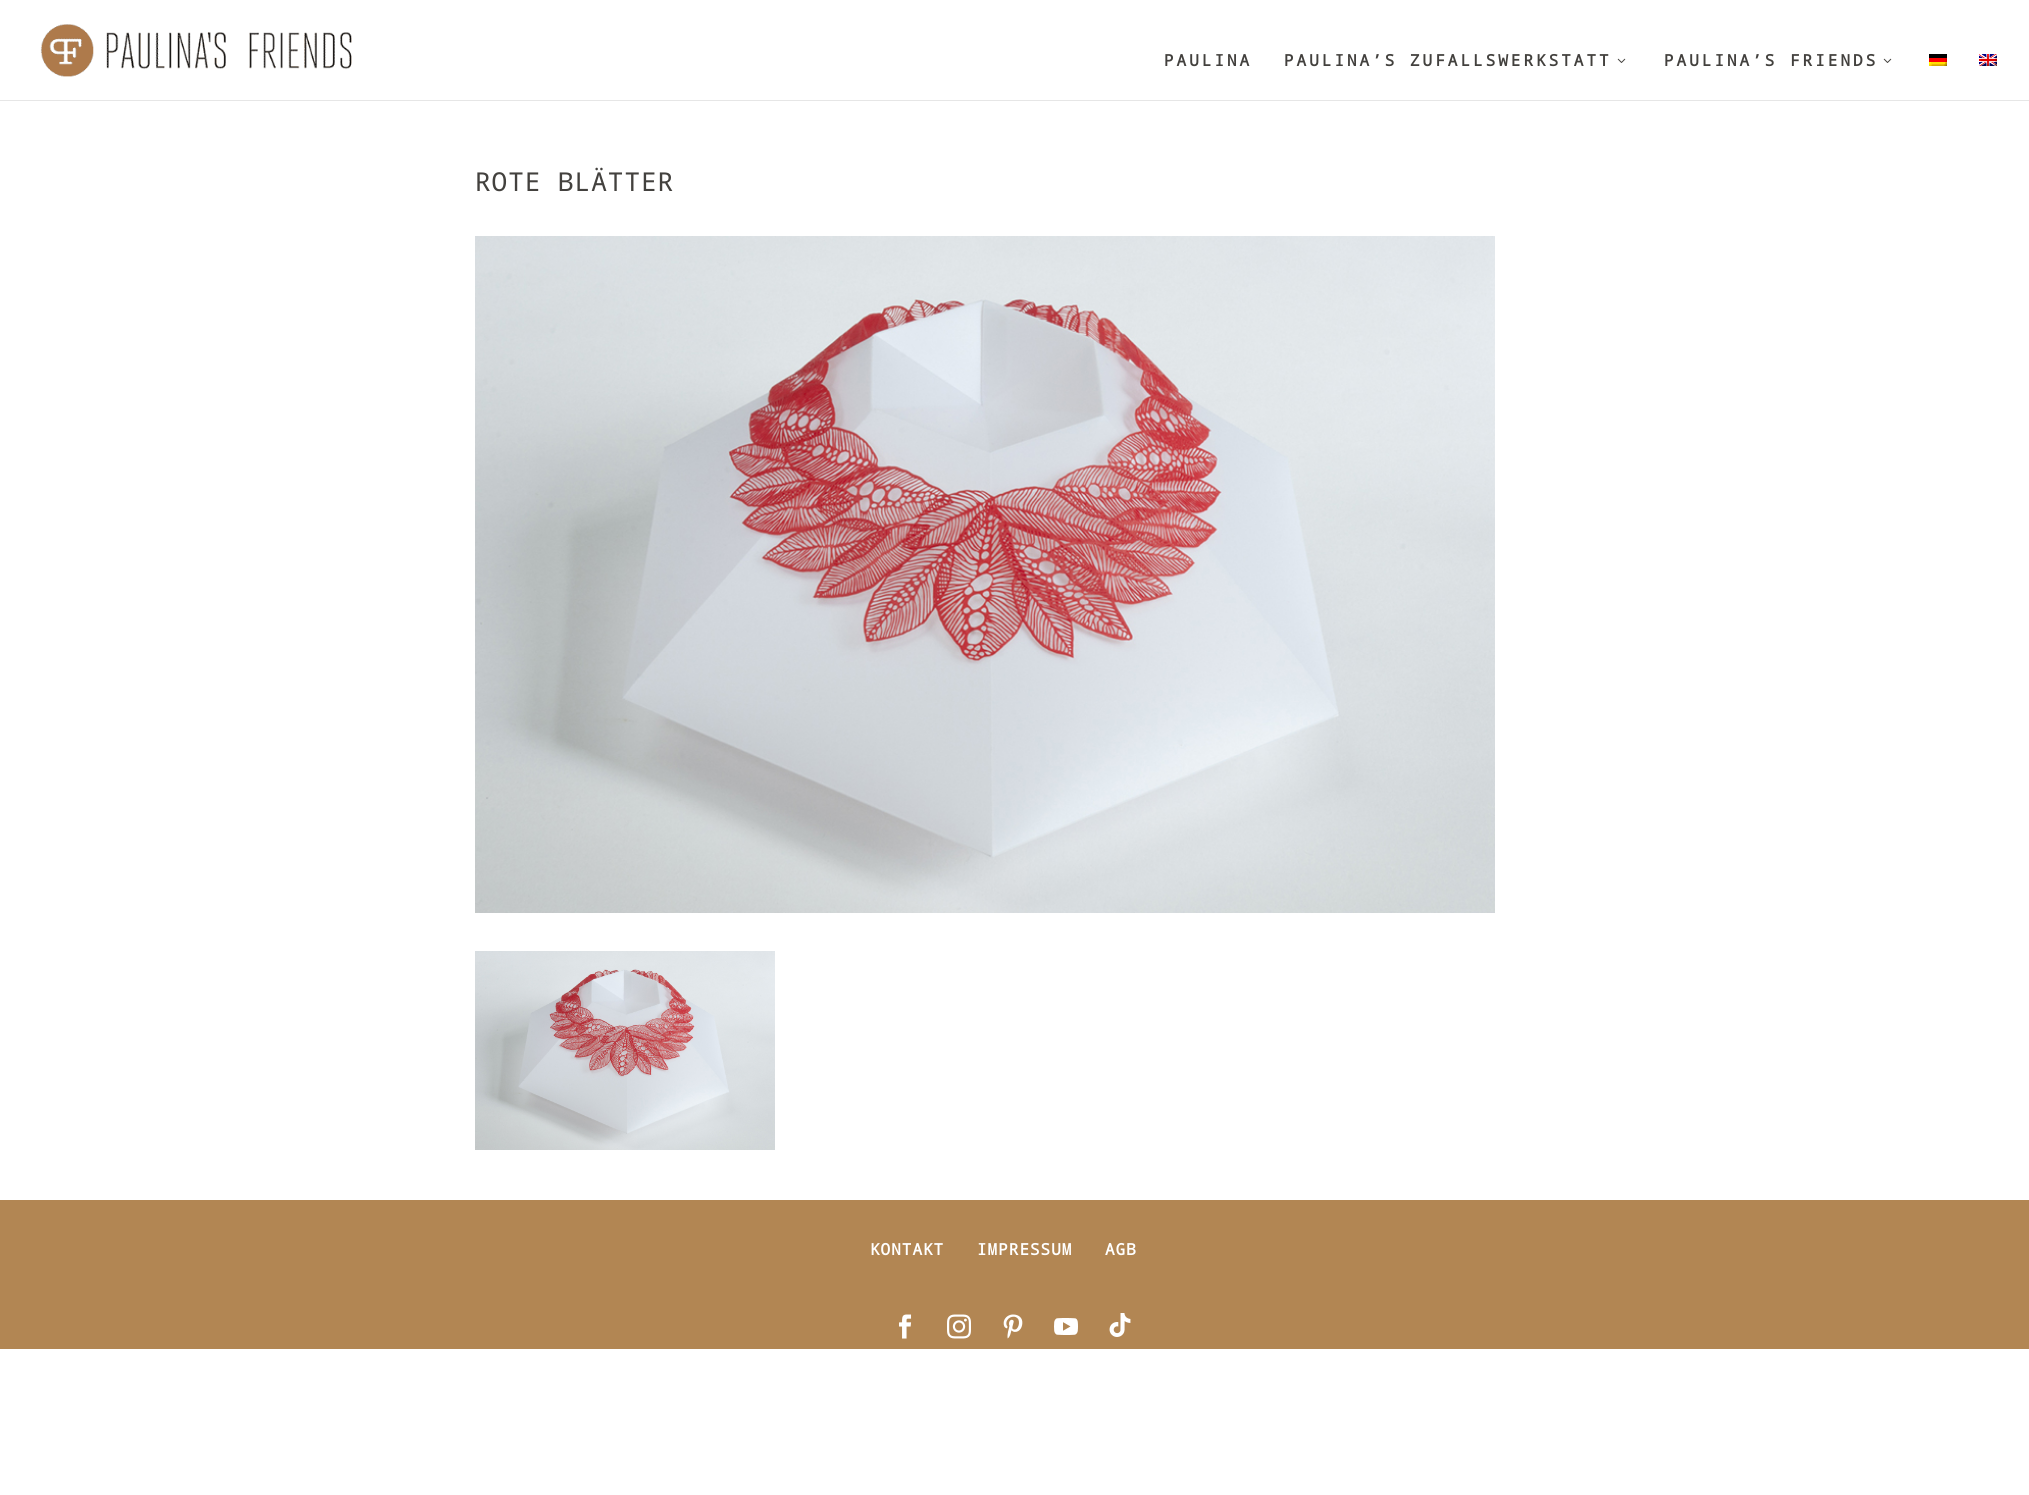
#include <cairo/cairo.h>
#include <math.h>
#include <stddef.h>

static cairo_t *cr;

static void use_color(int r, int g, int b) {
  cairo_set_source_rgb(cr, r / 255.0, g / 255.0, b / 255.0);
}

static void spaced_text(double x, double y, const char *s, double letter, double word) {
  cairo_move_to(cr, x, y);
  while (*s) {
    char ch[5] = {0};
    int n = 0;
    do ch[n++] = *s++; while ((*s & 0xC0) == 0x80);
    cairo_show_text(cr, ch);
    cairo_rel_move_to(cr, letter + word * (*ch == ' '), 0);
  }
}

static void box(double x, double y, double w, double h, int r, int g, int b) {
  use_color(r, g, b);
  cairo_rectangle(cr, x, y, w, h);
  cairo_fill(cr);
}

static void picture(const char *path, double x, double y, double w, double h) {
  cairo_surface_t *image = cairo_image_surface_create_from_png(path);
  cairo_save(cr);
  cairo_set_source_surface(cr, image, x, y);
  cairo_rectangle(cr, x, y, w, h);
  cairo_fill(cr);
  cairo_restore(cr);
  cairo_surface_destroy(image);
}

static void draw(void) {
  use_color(255, 255, 255);
  cairo_paint(cr);
  box(0, 100, 2029, 1, 230, 230, 230);
  picture("img_01.png", 40, 24, 312, 53);
  picture("img_02.png", 1617, 58, 9, 5);
  picture("img_02.png", 1883, 58, 9, 5);
  picture("img_03.png", 1929, 54, 18, 12);
  picture("img_04.png", 1979, 54, 18, 12);
  picture("img_05.png", 475, 236, 1020, 677);
  picture("img_06.png", 475, 951, 300, 199);
  box(0, 1200, 2029, 149, 178, 134, 83);
  picture("img_07.png", 899, 1314, 13, 25);
  picture("img_08.png", 947, 1314, 24, 25);
  picture("img_09.png", 1003, 1314, 20, 25);
  picture("img_10.png", 1054, 1318, 24, 17);
  picture("img_11.png", 1109, 1313, 22, 24);
  cairo_select_font_face(cr, "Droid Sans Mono", CAIRO_FONT_SLANT_NORMAL, CAIRO_FONT_WEIGHT_BOLD);
  cairo_set_font_size(cr, 16);
  use_color(67, 65, 62);
  spaced_text(1164, 66, "PAULINA", 3, 0);
  spaced_text(1284, 66, "PAULINA’S ZUFALLSWERKSTATT", 3, 0);
  spaced_text(1664, 66, "PAULINA’S FRIENDS", 3, 0);
  cairo_select_font_face(cr, "Droid Sans Mono", CAIRO_FONT_SLANT_NORMAL, CAIRO_FONT_WEIGHT_NORMAL);
  cairo_set_font_size(cr, 26);
  spaced_text(475, 191, "ROTE BLÄTTER", 1, 0);
  cairo_select_font_face(cr, "Droid Sans Mono", CAIRO_FONT_SLANT_NORMAL, CAIRO_FONT_WEIGHT_BOLD);
  cairo_set_font_size(cr, 16);
  use_color(255, 255, 255);
  spaced_text(870, 1255, "KONTAKT", 1, 0);
  spaced_text(977, 1255, "IMPRESSUM", 1, 0);
  spaced_text(1105, 1255, "AGB", 1, 0);
}

int main(void) {
  cairo_surface_t *surface = cairo_image_surface_create(CAIRO_FORMAT_RGB24, 2029, 1495);
  cr = cairo_create(surface);
  cairo_font_options_t *options = cairo_font_options_create();
  cairo_font_options_set_hint_metrics(options, CAIRO_HINT_METRICS_OFF);
  cairo_font_options_set_hint_style(options, CAIRO_HINT_STYLE_NONE);
  cairo_set_font_options(cr, options);
  cairo_set_miter_limit(cr, 4);
  draw();
  cairo_surface_write_to_png(surface, "out.png");
  cairo_font_options_destroy(options);
  cairo_destroy(cr);
  cairo_surface_destroy(surface);
  return 0;
}
